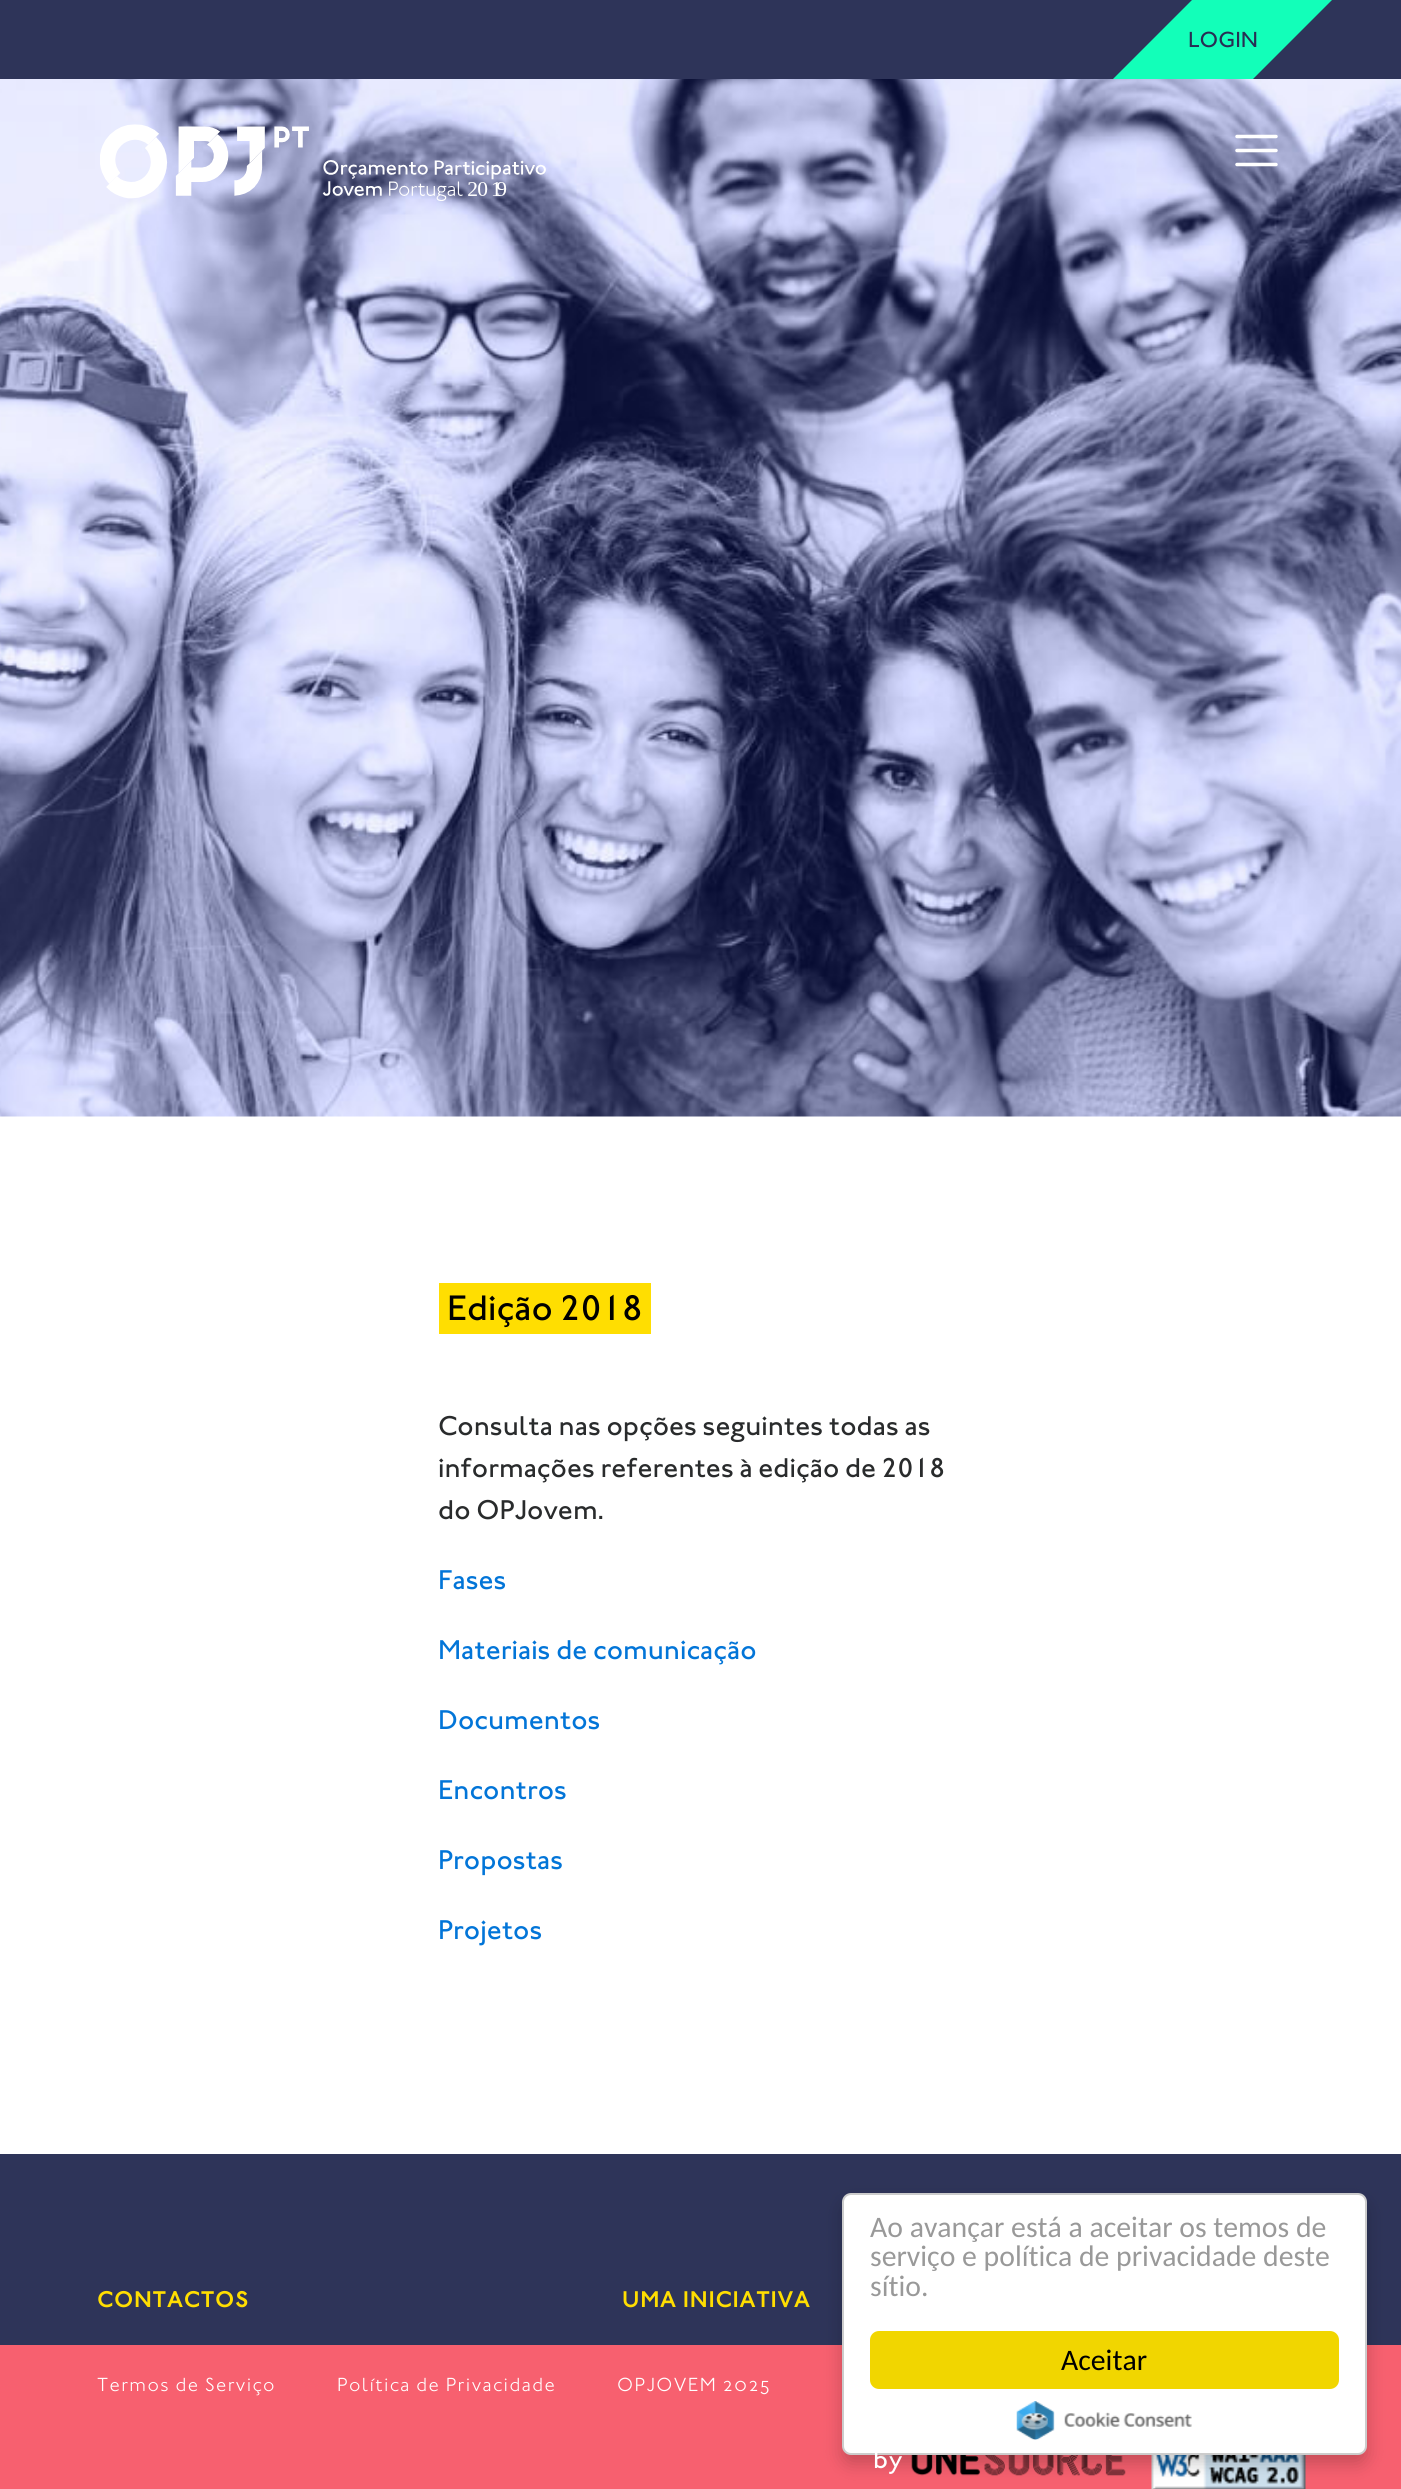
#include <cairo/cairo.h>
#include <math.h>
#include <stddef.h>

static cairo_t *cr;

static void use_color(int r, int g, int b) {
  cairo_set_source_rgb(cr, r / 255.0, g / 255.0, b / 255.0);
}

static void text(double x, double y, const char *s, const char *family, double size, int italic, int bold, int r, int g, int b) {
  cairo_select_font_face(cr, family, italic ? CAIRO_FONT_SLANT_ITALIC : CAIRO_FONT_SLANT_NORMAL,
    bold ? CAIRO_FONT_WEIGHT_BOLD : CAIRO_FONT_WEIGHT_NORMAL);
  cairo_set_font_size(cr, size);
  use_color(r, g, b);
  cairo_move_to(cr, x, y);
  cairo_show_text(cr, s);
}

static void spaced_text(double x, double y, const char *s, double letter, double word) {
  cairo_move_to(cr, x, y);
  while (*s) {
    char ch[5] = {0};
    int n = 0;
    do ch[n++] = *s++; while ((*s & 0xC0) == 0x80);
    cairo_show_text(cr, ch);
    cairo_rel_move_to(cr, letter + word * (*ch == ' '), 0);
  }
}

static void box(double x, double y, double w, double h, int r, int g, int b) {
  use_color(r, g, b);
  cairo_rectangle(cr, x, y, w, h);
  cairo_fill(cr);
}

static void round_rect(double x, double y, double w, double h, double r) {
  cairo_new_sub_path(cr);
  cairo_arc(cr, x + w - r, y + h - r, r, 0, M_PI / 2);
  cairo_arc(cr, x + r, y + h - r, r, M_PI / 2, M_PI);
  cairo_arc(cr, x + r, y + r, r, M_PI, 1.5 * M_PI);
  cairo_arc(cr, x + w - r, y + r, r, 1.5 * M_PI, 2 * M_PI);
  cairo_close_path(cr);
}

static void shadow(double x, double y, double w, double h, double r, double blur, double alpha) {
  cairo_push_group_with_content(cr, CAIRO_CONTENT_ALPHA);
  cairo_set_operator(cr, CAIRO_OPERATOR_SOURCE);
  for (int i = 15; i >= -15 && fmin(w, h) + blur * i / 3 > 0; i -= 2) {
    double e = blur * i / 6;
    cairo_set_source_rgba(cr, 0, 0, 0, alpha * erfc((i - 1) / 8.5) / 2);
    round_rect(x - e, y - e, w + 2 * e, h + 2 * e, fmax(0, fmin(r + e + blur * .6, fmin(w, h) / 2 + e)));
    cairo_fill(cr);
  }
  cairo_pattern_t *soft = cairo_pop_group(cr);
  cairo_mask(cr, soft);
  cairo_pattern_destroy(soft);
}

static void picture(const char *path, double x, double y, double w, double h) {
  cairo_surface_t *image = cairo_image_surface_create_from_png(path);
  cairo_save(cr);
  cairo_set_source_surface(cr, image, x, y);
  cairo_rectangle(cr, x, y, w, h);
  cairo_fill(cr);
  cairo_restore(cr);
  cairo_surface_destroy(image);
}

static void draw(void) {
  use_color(255, 255, 255);
  cairo_paint(cr);
  box(0, 0, 1401, 79, 46, 52, 89);
  use_color(18, 255, 185);
  cairo_new_path(cr);
  cairo_move_to(cr, 1192, 0);
  cairo_line_to(cr, 1332, 0);
  cairo_line_to(cr, 1253, 79);
  cairo_line_to(cr, 1113, 79);
  cairo_close_path(cr);
  cairo_fill(cr);
  picture("img_02.png", 0, 79, 1401, 1038);
  picture("img_01.png", 100, 124, 446, 77);
  cairo_new_path(cr);
  cairo_move_to(cr, 1237, 136.5);
  cairo_line_to(cr, 1276, 136.5);
  cairo_move_to(cr, 1237, 150.5);
  cairo_line_to(cr, 1276, 150.5);
  cairo_move_to(cr, 1237, 164.5);
  cairo_line_to(cr, 1276, 164.5);
  use_color(255, 255, 255);
  cairo_set_line_width(cr, 3.5);
  cairo_set_line_cap(cr, CAIRO_LINE_CAP_ROUND);
  cairo_stroke(cr);
  box(439, 1283, 212, 51, 255, 222, 1);
  box(0, 2154, 1401, 191, 46, 52, 89);
  box(0, 2345, 1401, 144, 247, 96, 111);
  picture("img_03.png", 911, 2455, 215, 21);
  picture("img_04.png", 1151, 2455, 155, 34);
  use_color(0, 0, 0);
  shadow(842, 2202, 525, 262, 9, 9, 0.2);
  use_color(255, 255, 255);
  round_rect(843, 2194, 523, 260, 8);
  cairo_fill_preserve(cr);
  use_color(204, 204, 204);
  cairo_set_line_width(cr, 2);
  cairo_set_line_cap(cr, CAIRO_LINE_CAP_BUTT);
  cairo_stroke(cr);
  use_color(241, 214, 0);
  round_rect(870, 2331, 469, 58, 9);
  cairo_fill(cr);
  picture("img_05.png", 1016, 2401, 176, 39);
  text(1188, 47, "LOGIN", "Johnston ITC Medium", 22.5, 0, 0, 40, 46, 83);
  text(447, 1320, "Edição 2018", "Johnston ITC Medium", 36.5, 0, 0, 0, 0, 0);
  text(438, 1435, "Consulta nas opções seguintes todas as", "Johnston ITC Medium", 28, 0, 0, 41, 43, 44);
  text(438, 1477, "informações referentes à edição de 2018", "Johnston ITC Medium", 28, 0, 0, 41, 43, 44);
  text(438, 1519, "do OPJovem.", "Johnston ITC Medium", 28, 0, 0, 41, 43, 44);
  text(438, 1589, "Fases", "Johnston ITC Medium", 28, 0, 0, 2, 117, 216);
  text(438, 1659, "Materiais de comunicação", "Johnston ITC Medium", 28, 0, 0, 2, 117, 216);
  text(438, 1729, "Documentos", "Johnston ITC Medium", 28, 0, 0, 2, 117, 216);
  text(438, 1799, "Encontros", "Johnston ITC Medium", 28, 0, 0, 2, 117, 216);
  text(438, 1869, "Propostas", "Johnston ITC Medium", 28, 0, 0, 2, 117, 216);
  text(438, 1939, "Projetos", "Johnston ITC Medium", 28, 0, 0, 2, 117, 216);
  cairo_select_font_face(cr, "Johnston ITC", CAIRO_FONT_SLANT_NORMAL, CAIRO_FONT_WEIGHT_BOLD);
  cairo_set_font_size(cr, 22.5);
  use_color(255, 222, 1);
  spaced_text(97, 2307, "CONTACTOS", 1.4, 0);
  spaced_text(622, 2307, "UMA INICIATIVA", 1.4, 0);
  cairo_select_font_face(cr, "Johnston ITC Light", CAIRO_FONT_SLANT_NORMAL, CAIRO_FONT_WEIGHT_NORMAL);
  cairo_set_font_size(cr, 19.6);
  use_color(255, 255, 255);
  spaced_text(97, 2391, "Termos de Serviço", 1.4, 0);
  spaced_text(337, 2391, "Política de Privacidade", 1.4, 0);
  spaced_text(617, 2391, "OPJOVEM 2025", 1.4, 0);
  cairo_select_font_face(cr, "Johnston ITC Medium", CAIRO_FONT_SLANT_NORMAL, CAIRO_FONT_WEIGHT_NORMAL);
  cairo_set_font_size(cr, 26);
  spaced_text(873, 2468, "by", 1.4, 0);
  text(870, 2237, "Ao avançar está a aceitar os temos de", "Carlito", 29.75, 0, 0, 153, 153, 153);
  text(870, 2266, "serviço e política de privacidade deste", "Carlito", 29.75, 0, 0, 153, 153, 153);
  text(870, 2296, "sítio.", "Carlito", 29.75, 0, 0, 153, 153, 153);
  text(1061, 2370, "Aceitar", "Carlito", 29.75, 0, 0, 0, 0, 0);
}

int main(void) {
  cairo_surface_t *surface = cairo_image_surface_create(CAIRO_FORMAT_RGB24, 1401, 2489);
  cr = cairo_create(surface);
  cairo_font_options_t *options = cairo_font_options_create();
  cairo_font_options_set_hint_metrics(options, CAIRO_HINT_METRICS_OFF);
  cairo_font_options_set_hint_style(options, CAIRO_HINT_STYLE_NONE);
  cairo_set_font_options(cr, options);
  cairo_set_miter_limit(cr, 4);
  draw();
  cairo_surface_write_to_png(surface, "out.png");
  cairo_font_options_destroy(options);
  cairo_destroy(cr);
  cairo_surface_destroy(surface);
  return 0;
}
